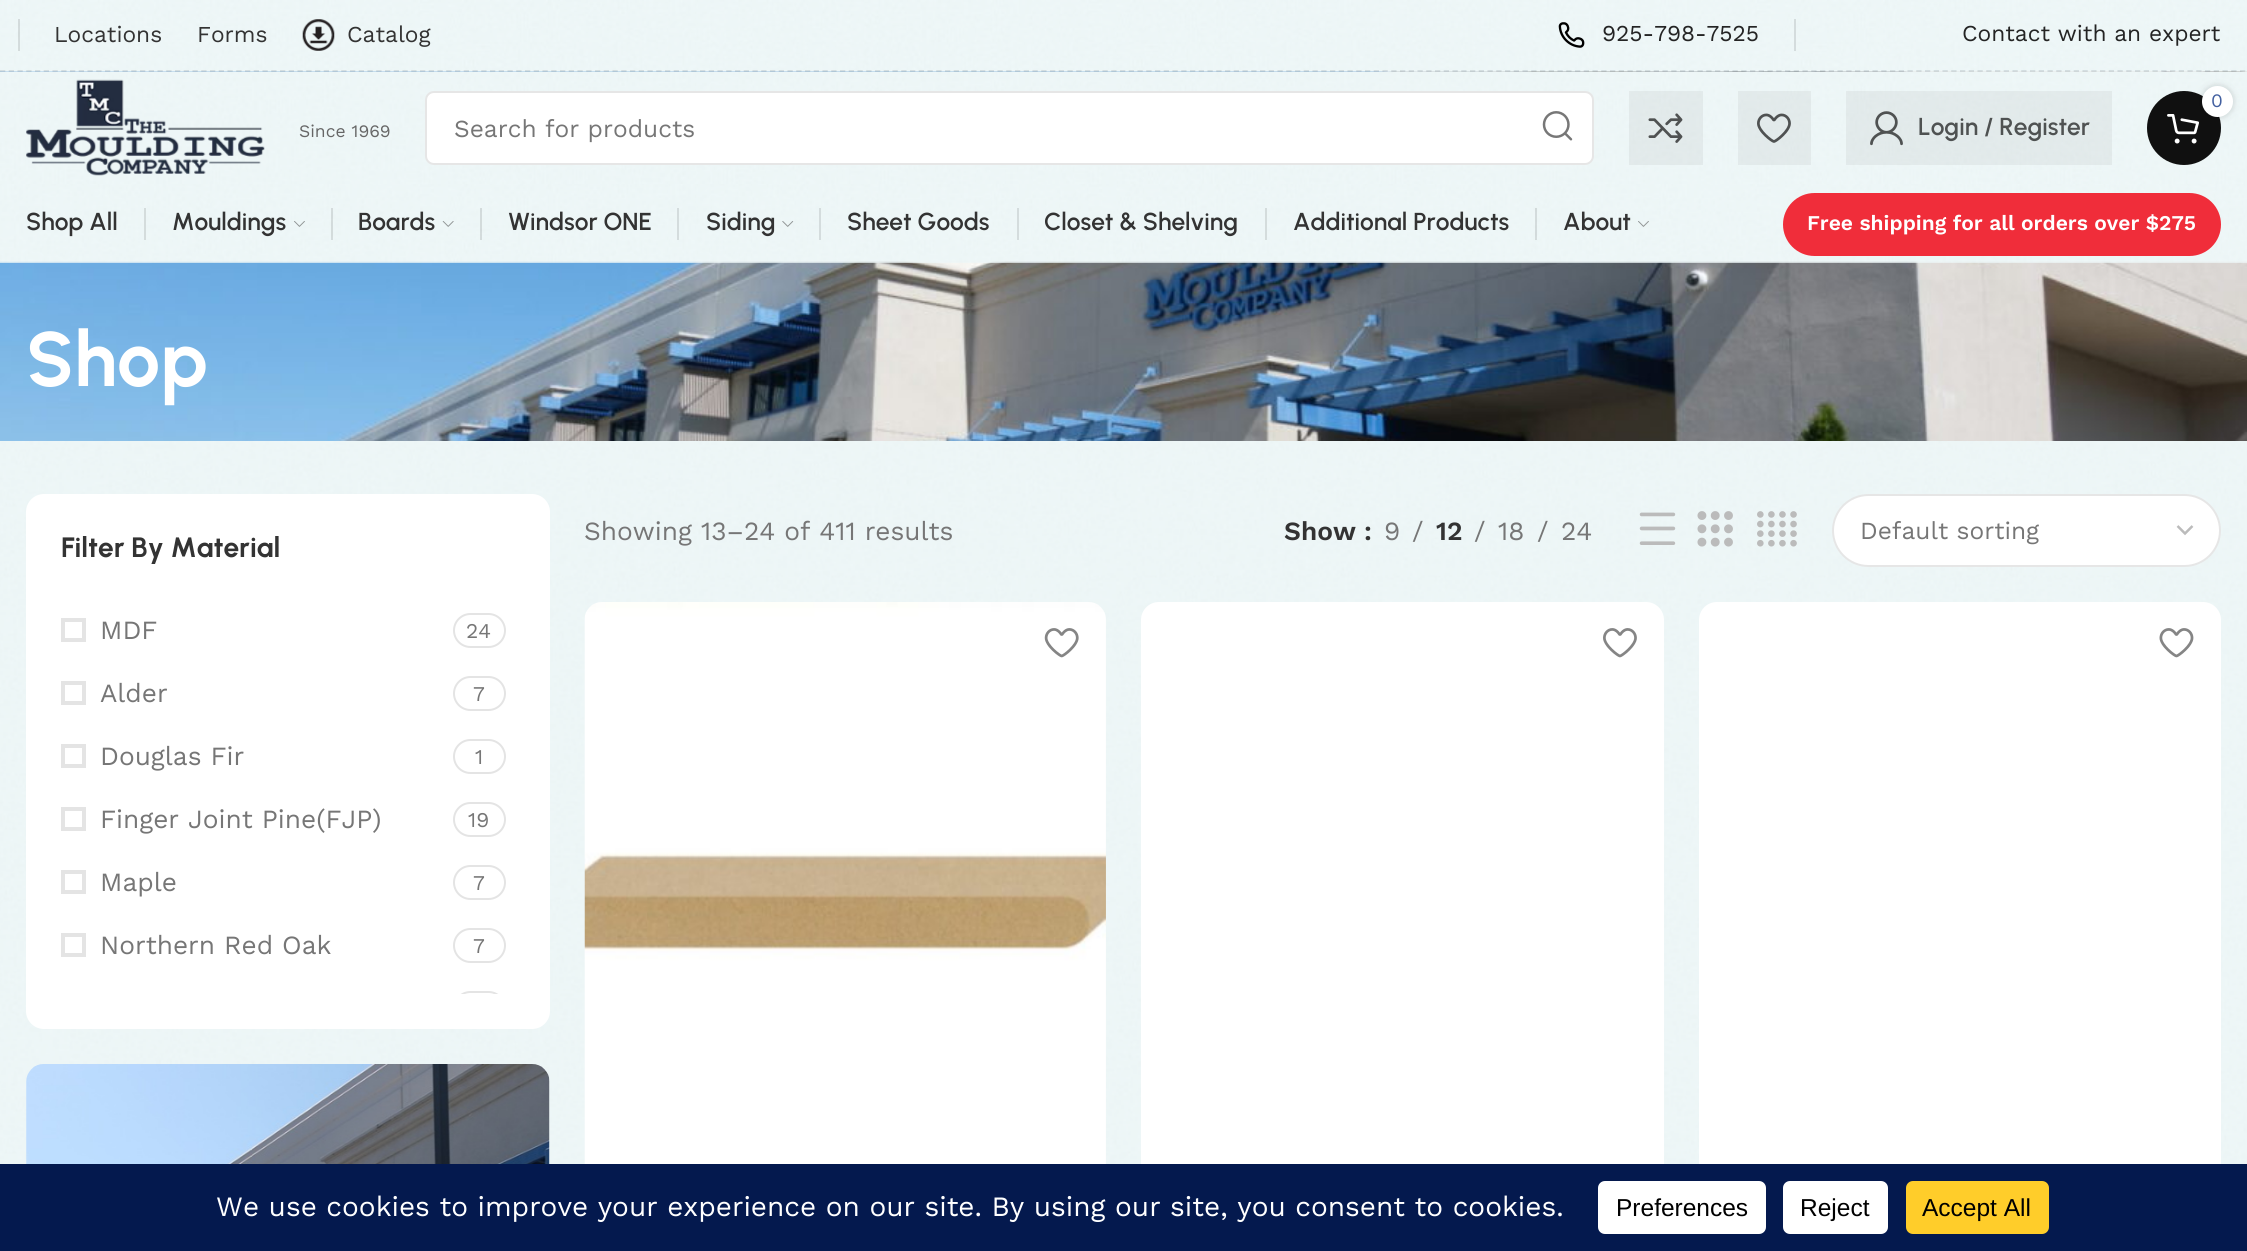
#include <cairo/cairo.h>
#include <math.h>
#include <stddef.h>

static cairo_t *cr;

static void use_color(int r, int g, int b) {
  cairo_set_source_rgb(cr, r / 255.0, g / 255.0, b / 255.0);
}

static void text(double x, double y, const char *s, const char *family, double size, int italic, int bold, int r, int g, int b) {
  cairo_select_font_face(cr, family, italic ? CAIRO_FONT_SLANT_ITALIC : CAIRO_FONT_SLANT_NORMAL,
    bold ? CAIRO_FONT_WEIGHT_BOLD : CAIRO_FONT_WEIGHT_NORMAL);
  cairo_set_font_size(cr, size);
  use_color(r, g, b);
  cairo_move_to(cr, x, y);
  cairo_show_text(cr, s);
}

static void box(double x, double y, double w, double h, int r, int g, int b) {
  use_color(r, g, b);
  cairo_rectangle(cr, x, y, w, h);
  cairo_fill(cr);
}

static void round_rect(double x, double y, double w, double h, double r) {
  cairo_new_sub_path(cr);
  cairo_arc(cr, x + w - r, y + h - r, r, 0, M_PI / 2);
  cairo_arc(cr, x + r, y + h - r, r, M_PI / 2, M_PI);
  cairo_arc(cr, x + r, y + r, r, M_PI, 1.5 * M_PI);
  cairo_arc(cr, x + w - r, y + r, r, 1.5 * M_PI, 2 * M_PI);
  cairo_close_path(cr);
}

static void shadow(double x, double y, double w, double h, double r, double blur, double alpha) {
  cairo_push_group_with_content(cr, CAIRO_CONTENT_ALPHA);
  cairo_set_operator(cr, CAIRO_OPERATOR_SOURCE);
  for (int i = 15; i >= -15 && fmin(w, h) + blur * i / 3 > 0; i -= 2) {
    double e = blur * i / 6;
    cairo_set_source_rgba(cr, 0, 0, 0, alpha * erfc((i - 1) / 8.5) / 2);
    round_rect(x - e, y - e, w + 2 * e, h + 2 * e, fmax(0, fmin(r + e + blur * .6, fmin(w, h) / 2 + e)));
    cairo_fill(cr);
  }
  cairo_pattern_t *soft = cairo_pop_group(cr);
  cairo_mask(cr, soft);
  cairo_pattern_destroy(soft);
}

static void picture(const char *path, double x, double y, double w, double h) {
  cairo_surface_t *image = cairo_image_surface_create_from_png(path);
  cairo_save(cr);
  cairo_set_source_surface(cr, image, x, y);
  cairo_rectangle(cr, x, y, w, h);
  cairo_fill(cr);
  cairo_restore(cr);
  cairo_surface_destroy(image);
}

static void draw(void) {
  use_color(255, 255, 255);
  cairo_paint(cr);
  picture("img_17.png", 0, 71, 2247, 370);
  picture("img_01.png", 0, 0, 2247, 72);
  cairo_new_path(cr);
  cairo_move_to(cr, 0, 71);
  cairo_line_to(cr, 2247, 71);
  cairo_set_source_rgba(cr, 0, 0.075, 0.141, 0.12);
  cairo_set_line_width(cr, 1.8);
  cairo_set_dash(cr, (double[]){5.25, 3.5}, 2, 0);
  cairo_stroke(cr);
  cairo_set_source_rgba(cr, 0, 0, 0, 0.11);
  cairo_rectangle(cr, 18, 19, 2, 32);
  cairo_fill(cr);
  picture("img_02.png", 302, 19, 33, 32);
  picture("img_03.png", 1558, 22, 27, 26);
  box(1794, 19, 2, 32, 212, 220, 221);
  picture("img_04.png", 0, 72, 2247, 112);
  picture("img_05.png", 26, 79, 239, 97);
  use_color(255, 255, 255);
  round_rect(425, 91, 1169, 74, 9);
  cairo_fill(cr);
  round_rect(426, 92, 1167, 72, 8);
  cairo_set_source_rgba(cr, 0, 0, 0, 0.1);
  cairo_set_line_width(cr, 2);
  cairo_set_dash(cr, NULL, 0, 0);
  cairo_stroke(cr);
  picture("img_06.png", 1542, 111, 31, 30);
  cairo_set_source_rgba(cr, 0.063, 0.063, 0.063, 0.05);
  cairo_rectangle(cr, 1629, 91, 74, 74);
  cairo_fill(cr);
  picture("img_07.png", 1648, 113, 35, 30);
  cairo_rectangle(cr, 1738, 91, 73, 74);
  cairo_fill(cr);
  picture("img_08.png", 1757, 113, 34, 30);
  use_color(16, 16, 16);
  cairo_arc(cr, 2184, 128, 37, 0, 2 * M_PI);
  cairo_fill(cr);
  picture("img_09.png", 2167, 114, 32, 30);
  use_color(0, 0, 0);
  shadow(2202, 86, 31, 31, 15.5, 3.5, 0.17);
  use_color(255, 255, 255);
  cairo_arc(cr, 2217.5, 101.5, 15.5, 0, 2 * M_PI);
  cairo_fill(cr);
  cairo_set_source_rgba(cr, 0.063, 0.063, 0.063, 0.05);
  cairo_rectangle(cr, 1846, 91, 266, 74);
  cairo_fill(cr);
  picture("img_10.png", 1870, 111, 33, 35);
  picture("img_11.png", 0, 184, 2247, 79);
  box(144, 208, 2, 32, 212, 220, 220);
  picture("img_12.png", 294, 221, 11, 6);
  cairo_set_source_rgba(cr, 0, 0, 0, 0.11);
  cairo_rectangle(cr, 331, 208, 2, 32);
  cairo_fill(cr);
  picture("img_13.png", 442, 221, 12, 6);
  cairo_rectangle(cr, 480, 208, 2, 32);
  cairo_fill(cr);
  box(677, 208, 2, 32, 212, 220, 221);
  picture("img_14.png", 782, 221, 12, 6);
  box(819, 208, 2, 32, 212, 220, 221);
  box(1017, 208, 2, 32, 212, 220, 221);
  box(1265, 208, 2, 32, 212, 220, 220);
  cairo_set_source_rgba(cr, 0, 0, 0, 0.11);
  cairo_rectangle(cr, 1535, 208, 2, 32);
  cairo_fill(cr);
  picture("img_15.png", 1638, 221, 11, 6);
  use_color(240, 45, 58);
  round_rect(1783, 193, 438, 63, 31.5);
  cairo_fill(cr);
  picture("img_16.png", 0, 441, 2247, 723);
  picture("img_18.png", 1639, 512, 37, 33);
  picture("img_19.png", 1697, 511, 36, 36);
  picture("img_20.png", 1757, 511, 40, 36);
  use_color(255, 255, 255);
  round_rect(1832, 494, 389, 73, 36.5);
  cairo_fill(cr);
  cairo_new_path(cr);
  cairo_move_to(cr, 2177.5, 526);
  cairo_line_to(cr, 2185, 533.5);
  cairo_line_to(cr, 2192.5, 526);
  use_color(187, 187, 187);
  cairo_set_line_width(cr, 2.5);
  cairo_stroke(cr);
  round_rect(1833, 495, 387, 71, 35.5);
  cairo_set_source_rgba(cr, 0, 0, 0, 0.1);
  cairo_set_line_width(cr, 2);
  cairo_stroke(cr);
  picture("img_21.png", 584, 602, 522, 562);
  picture("img_22.png", 1044, 628, 35, 30);
  use_color(255, 255, 255);
  round_rect(1141, 602, 523, 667, 18);
  cairo_fill(cr);
  picture("img_23.png", 1603, 628, 34, 30);
  round_rect(1699, 602, 522, 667, 18);
  cairo_fill(cr);
  picture("img_24.png", 2159, 628, 35, 30);
  round_rect(26, 494, 524, 535, 18);
  cairo_fill(cr);
  cairo_rectangle(cr, 63, 620, 21, 20);
  use_color(228, 228, 228);
  cairo_set_line_width(cr, 4);
  cairo_stroke(cr);
  round_rect(454, 614, 51, 33, 16.5);
  cairo_set_line_width(cr, 2);
  cairo_stroke(cr);
  cairo_rectangle(cr, 63, 683, 21, 20);
  cairo_set_line_width(cr, 4);
  cairo_stroke(cr);
  round_rect(454, 677, 51, 33, 16.5);
  cairo_set_line_width(cr, 2);
  cairo_stroke(cr);
  cairo_rectangle(cr, 63, 746, 21, 20);
  cairo_set_line_width(cr, 4);
  cairo_stroke(cr);
  round_rect(454, 740, 51, 33, 16.5);
  cairo_set_line_width(cr, 2);
  cairo_stroke(cr);
  cairo_rectangle(cr, 63, 809, 21, 20);
  cairo_set_line_width(cr, 4);
  cairo_stroke(cr);
  round_rect(454, 803, 51, 33, 16.5);
  cairo_set_line_width(cr, 2);
  cairo_stroke(cr);
  cairo_rectangle(cr, 63, 872, 21, 20);
  cairo_set_line_width(cr, 4);
  cairo_stroke(cr);
  round_rect(454, 866, 51, 33, 16.5);
  cairo_set_line_width(cr, 2);
  cairo_stroke(cr);
  cairo_rectangle(cr, 63, 935, 21, 20);
  cairo_set_line_width(cr, 4);
  cairo_stroke(cr);
  round_rect(454, 929, 51, 33, 16.5);
  cairo_set_line_width(cr, 2);
  cairo_stroke(cr);
  cairo_save(cr);
  cairo_rectangle(cr, 61, 604, 454, 390);
  cairo_clip(cr);
  round_rect(454, 992, 51, 33, 16.5);
  cairo_stroke(cr);
  cairo_restore(cr);
  picture("img_25.png", 26, 1064, 524, 100);
  box(0, 1164, 2247, 87, 4, 25, 78);
  use_color(255, 255, 255);
  round_rect(1598, 1181, 168, 53, 7);
  cairo_fill(cr);
  round_rect(1783, 1181, 105, 53, 7);
  cairo_fill(cr);
  use_color(255, 205, 42);
  round_rect(1906, 1181, 143, 53, 7);
  cairo_fill(cr);
  text(54, 42, "Locations", "Work Sans", 22.75, 0, 0, 51, 51, 51);
  text(197, 42, "Forms", "Work Sans", 22.75, 0, 0, 51, 51, 51);
  text(347, 42, "Catalog", "Work Sans", 22.75, 0, 0, 51, 51, 51);
  text(1602, 41, "925-798-7525", "Work Sans", 22.75, 0, 0, 36, 36, 36);
  text(1962, 41, "Contact with an expert", "Work Sans", 22.75, 0, 0, 36, 36, 36);
  text(299, 137, "Since 1969", "Work Sans", 17.5, 0, 0, 102, 102, 102);
  text(454, 137, "Search for products", "Work Sans", 24.5, 0, 0, 118, 118, 118);
  text(2211, 107, "0", "Work Sans", 19, 0, 0, 67, 96, 160);
  text(1918, 135, "Login / Register", "Urbanist SemiBold", 24.5, 0, 0, 79, 82, 82);
  text(26, 230, "Shop All", "Urbanist SemiBold", 24.5, 0, 0, 51, 51, 51);
  text(172, 230, "Mouldings", "Urbanist SemiBold", 24.5, 0, 0, 51, 51, 51);
  text(358, 230, "Boards", "Urbanist SemiBold", 24.5, 0, 0, 51, 51, 51);
  text(508, 230, "Windsor ONE", "Urbanist SemiBold", 24.5, 0, 0, 51, 51, 51);
  text(706, 230, "Siding", "Urbanist SemiBold", 24.5, 0, 0, 51, 51, 51);
  text(847, 230, "Sheet Goods", "Urbanist SemiBold", 24.5, 0, 0, 51, 51, 51);
  text(1044, 230, "Closet & Shelving", "Urbanist SemiBold", 24.5, 0, 0, 51, 51, 51);
  text(1293, 230, "Additional Products", "Urbanist SemiBold", 24.5, 0, 0, 51, 51, 51);
  text(1563, 230, "About", "Urbanist SemiBold", 24.5, 0, 0, 51, 51, 51);
  text(1807, 230, "Free shipping for all orders over $275", "Work Sans SemiBold", 21, 0, 0, 255, 255, 255);
  text(26, 386, "Shop", "Urbanist", 77, 0, 1, 255, 255, 255);
  text(584, 540, "Showing 13–24 of 411 results", "Work Sans", 26.25, 0, 0, 118, 118, 118);
  text(1284, 540, "Show :", "Work Sans SemiBold", 26.25, 0, 0, 51, 51, 51);
  text(1384, 540, "9", "Work Sans", 26.25, 0, 0, 118, 118, 118);
  text(1412, 540, "/", "Work Sans", 26.25, 0, 0, 118, 118, 118);
  text(1436, 540, "12", "Work Sans SemiBold", 26.25, 0, 0, 51, 51, 51);
  text(1474, 540, "/", "Work Sans", 26.25, 0, 0, 118, 118, 118);
  text(1498, 540, "18", "Work Sans", 26.25, 0, 0, 118, 118, 118);
  text(1537, 540, "/", "Work Sans", 26.25, 0, 0, 118, 118, 118);
  text(1561, 540, "24", "Work Sans", 26.25, 0, 0, 118, 118, 118);
  text(1860, 539, "Default sorting", "Work Sans", 24.5, 0, 0, 118, 118, 118);
  text(61, 557, "Filter By Material", "Urbanist", 28, 0, 1, 51, 51, 51);
  text(100, 639, "MDF", "Work Sans", 26.25, 0, 0, 118, 118, 118);
  text(466, 638, "24", "Work Sans", 21, 0, 0, 118, 118, 118);
  text(100, 702, "Alder", "Work Sans", 26.25, 0, 0, 118, 118, 118);
  text(473, 701, "7", "Work Sans", 21, 0, 0, 118, 118, 118);
  text(100, 765, "Douglas Fir", "Work Sans", 26.25, 0, 0, 118, 118, 118);
  text(475, 764, "1", "Work Sans", 21, 0, 0, 118, 118, 118);
  text(100, 828, "Finger Joint Pine(FJP)", "Work Sans", 26.25, 0, 0, 118, 118, 118);
  text(468, 827, "19", "Work Sans", 21, 0, 0, 118, 118, 118);
  text(100, 891, "Maple", "Work Sans", 26.25, 0, 0, 118, 118, 118);
  text(473, 890, "7", "Work Sans", 21, 0, 0, 118, 118, 118);
  text(100, 954, "Northern Red Oak", "Work Sans", 26.25, 0, 0, 118, 118, 118);
  text(473, 953, "7", "Work Sans", 21, 0, 0, 118, 118, 118);
  text(216, 1216, "We use cookies to improve your experience on our site. By using our site, you consent to cookies.", "Work Sans", 28, 0, 0, 255, 255, 255);
  text(1616, 1216, "Preferences", "Liberation Sans", 24.5, 0, 0, 0, 0, 0);
  text(1800, 1216, "Reject", "Liberation Sans", 24.5, 0, 0, 0, 0, 0);
  text(1922, 1216, "Accept All", "Liberation Sans", 24.5, 0, 0, 0, 0, 0);
}

int main(void) {
  cairo_surface_t *surface = cairo_image_surface_create(CAIRO_FORMAT_RGB24, 2247, 1251);
  cr = cairo_create(surface);
  cairo_font_options_t *options = cairo_font_options_create();
  cairo_font_options_set_hint_metrics(options, CAIRO_HINT_METRICS_OFF);
  cairo_font_options_set_hint_style(options, CAIRO_HINT_STYLE_NONE);
  cairo_set_font_options(cr, options);
  cairo_set_miter_limit(cr, 4);
  draw();
  cairo_surface_write_to_png(surface, "out.png");
  cairo_font_options_destroy(options);
  cairo_destroy(cr);
  cairo_surface_destroy(surface);
  return 0;
}
